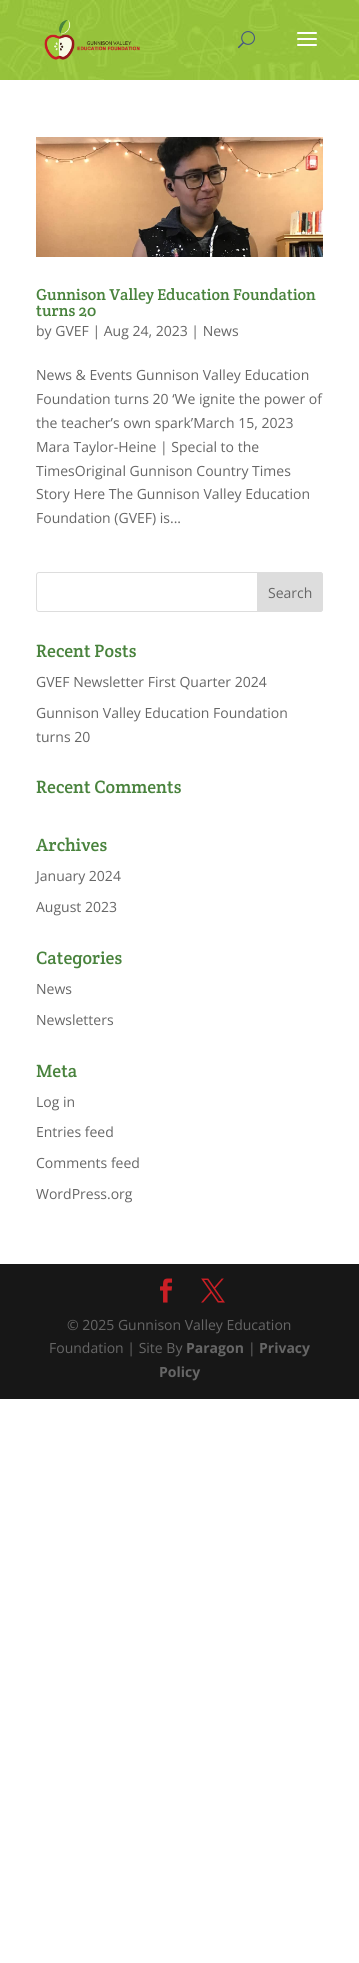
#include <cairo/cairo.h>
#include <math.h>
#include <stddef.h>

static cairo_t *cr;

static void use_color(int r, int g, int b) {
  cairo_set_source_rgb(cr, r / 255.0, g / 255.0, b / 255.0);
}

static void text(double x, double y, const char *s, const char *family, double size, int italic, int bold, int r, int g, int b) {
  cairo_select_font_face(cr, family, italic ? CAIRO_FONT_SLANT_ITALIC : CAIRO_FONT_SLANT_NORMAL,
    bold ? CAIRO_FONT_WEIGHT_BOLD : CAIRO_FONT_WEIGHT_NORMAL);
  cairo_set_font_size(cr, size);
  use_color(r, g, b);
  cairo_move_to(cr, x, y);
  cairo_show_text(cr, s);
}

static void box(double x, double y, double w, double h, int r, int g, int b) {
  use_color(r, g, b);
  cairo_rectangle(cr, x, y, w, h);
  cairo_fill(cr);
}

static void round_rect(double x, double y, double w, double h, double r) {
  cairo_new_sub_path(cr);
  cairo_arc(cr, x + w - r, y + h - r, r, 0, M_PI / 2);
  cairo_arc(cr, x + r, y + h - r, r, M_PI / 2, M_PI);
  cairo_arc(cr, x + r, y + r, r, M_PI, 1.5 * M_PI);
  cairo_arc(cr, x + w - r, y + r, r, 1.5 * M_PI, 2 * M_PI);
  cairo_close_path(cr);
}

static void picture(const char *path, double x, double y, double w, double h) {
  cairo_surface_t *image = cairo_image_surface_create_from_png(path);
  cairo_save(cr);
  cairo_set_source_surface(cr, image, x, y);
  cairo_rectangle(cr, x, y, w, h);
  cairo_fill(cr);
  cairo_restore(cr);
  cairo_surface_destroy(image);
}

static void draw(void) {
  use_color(255, 255, 255);
  cairo_paint(cr);
  picture("img_01.png", 0, 0, 359, 80);
  picture("img_02.png", 44, 20, 96, 40);
  picture("img_03.png", 238, 31, 17, 18);
  picture("img_04.png", 297, 32, 20, 14);
  picture("img_05.png", 36, 137, 287, 120);
  round_rect(36.5, 572.5, 286, 39, 2.5);
  use_color(221, 221, 221);
  cairo_set_line_width(cr, 1);
  cairo_stroke(cr);
  cairo_new_path(cr);
  cairo_move_to(cr, 257.5, 572.5);
  cairo_line_to(cr, 320, 572.5);
  cairo_curve_to(cr, 321.5, 572.5, 322.5, 573.5, 322.5, 575);
  cairo_line_to(cr, 322.5, 609);
  cairo_curve_to(cr, 322.5, 610.5, 321.5, 611.5, 320, 611.5);
  cairo_line_to(cr, 257.5, 611.5);
  cairo_close_path(cr);
  cairo_fill_preserve(cr);
  cairo_stroke(cr);
  box(0, 1264, 359, 135, 23, 23, 23);
  picture("img_06.png", 160, 1278, 13, 25);
  picture("img_07.png", 201, 1278, 24, 25);
  text(36, 300, "Gunnison Valley Education Foundation", "Crete Round", 16, 0, 0, 73, 131, 61);
  text(36, 316, "turns 20", "Crete Round", 16, 0, 0, 73, 131, 61);
  text(36, 336, "by GVEF | Aug 24, 2023 | News", "Open Sans", 14, 0, 0, 102, 102, 102);
  text(36, 380, "News & Events Gunnison Valley Education", "Open Sans", 14, 0, 0, 102, 102, 102);
  text(36, 404, "Foundation turns 20 ‘We ignite the power of", "Open Sans", 14, 0, 0, 102, 102, 102);
  text(36, 428, "the teacher’s own spark’March 15, 2023", "Open Sans", 14, 0, 0, 102, 102, 102);
  text(36, 452, "Mara Taylor-Heine | Special to the", "Open Sans", 14, 0, 0, 102, 102, 102);
  text(36, 476, "TimesOriginal Gunnison Country Times", "Open Sans", 14, 0, 0, 102, 102, 102);
  text(36, 499, "Story Here The Gunnison Valley Education", "Open Sans", 14, 0, 0, 102, 102, 102);
  text(36, 523, "Foundation (GVEF) is...", "Open Sans", 14, 0, 0, 102, 102, 102);
  text(268, 598, "Search", "Open Sans", 14, 0, 0, 102, 102, 102);
  text(36, 657, "Recent Posts", "Crete Round", 18, 0, 0, 73, 131, 61);
  text(36, 687, "GVEF Newsletter First Quarter 2024", "Open Sans", 14, 0, 0, 102, 102, 102);
  text(36, 718, "Gunnison Valley Education Foundation", "Open Sans", 14, 0, 0, 102, 102, 102);
  text(36, 742, "turns 20", "Open Sans", 14, 0, 0, 102, 102, 102);
  text(36, 793, "Recent Comments", "Crete Round", 18, 0, 0, 73, 131, 61);
  text(36, 851, "Archives", "Crete Round", 18, 0, 0, 73, 131, 61);
  text(36, 881, "January 2024", "Open Sans", 14, 0, 0, 102, 102, 102);
  text(36, 912, "August 2023", "Open Sans", 14, 0, 0, 102, 102, 102);
  text(36, 964, "Categories", "Crete Round", 18, 0, 0, 73, 131, 61);
  text(36, 994, "News", "Open Sans", 14, 0, 0, 102, 102, 102);
  text(36, 1025, "Newsletters", "Open Sans", 14, 0, 0, 102, 102, 102);
  text(36, 1077, "Meta", "Crete Round", 18, 0, 0, 73, 131, 61);
  text(36, 1107, "Log in", "Open Sans", 14, 0, 0, 102, 102, 102);
  text(36, 1137, "Entries feed", "Open Sans", 14, 0, 0, 102, 102, 102);
  text(36, 1168, "Comments feed", "Open Sans", 14, 0, 0, 102, 102, 102);
  text(36, 1199, "WordPress.org", "Open Sans", 14, 0, 0, 102, 102, 102);
  text(67, 1330, "© 2025 Gunnison Valley Education", "Open Sans", 14, 0, 0, 102, 102, 102);
  text(49, 1353, "Foundation | Site By", "Open Sans", 14, 0, 0, 102, 102, 102);
  text(186, 1353, "Paragon", "Open Sans", 14, 0, 1, 102, 102, 102);
  text(248, 1353, "|", "Open Sans", 14, 0, 0, 102, 102, 102);
  text(259, 1353, "Privacy", "Open Sans", 14, 0, 1, 102, 102, 102);
  text(159, 1377, "Policy", "Open Sans", 14, 0, 1, 102, 102, 102);
}

int main(void) {
  cairo_surface_t *surface = cairo_image_surface_create(CAIRO_FORMAT_RGB24, 359, 1963);
  cr = cairo_create(surface);
  cairo_font_options_t *options = cairo_font_options_create();
  cairo_font_options_set_hint_metrics(options, CAIRO_HINT_METRICS_OFF);
  cairo_font_options_set_hint_style(options, CAIRO_HINT_STYLE_NONE);
  cairo_set_font_options(cr, options);
  cairo_set_miter_limit(cr, 4);
  draw();
  cairo_surface_write_to_png(surface, "out.png");
  cairo_font_options_destroy(options);
  cairo_destroy(cr);
  cairo_surface_destroy(surface);
  return 0;
}
